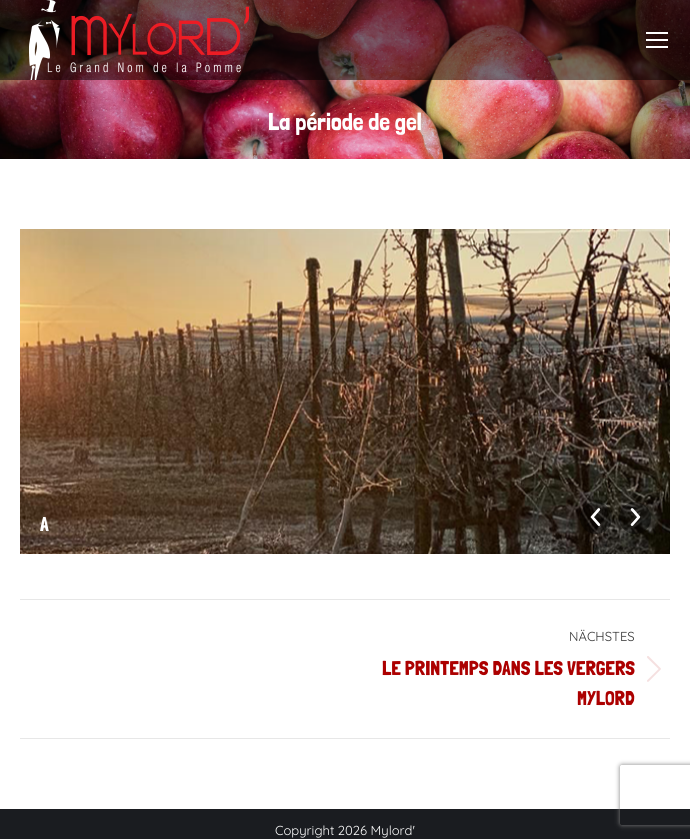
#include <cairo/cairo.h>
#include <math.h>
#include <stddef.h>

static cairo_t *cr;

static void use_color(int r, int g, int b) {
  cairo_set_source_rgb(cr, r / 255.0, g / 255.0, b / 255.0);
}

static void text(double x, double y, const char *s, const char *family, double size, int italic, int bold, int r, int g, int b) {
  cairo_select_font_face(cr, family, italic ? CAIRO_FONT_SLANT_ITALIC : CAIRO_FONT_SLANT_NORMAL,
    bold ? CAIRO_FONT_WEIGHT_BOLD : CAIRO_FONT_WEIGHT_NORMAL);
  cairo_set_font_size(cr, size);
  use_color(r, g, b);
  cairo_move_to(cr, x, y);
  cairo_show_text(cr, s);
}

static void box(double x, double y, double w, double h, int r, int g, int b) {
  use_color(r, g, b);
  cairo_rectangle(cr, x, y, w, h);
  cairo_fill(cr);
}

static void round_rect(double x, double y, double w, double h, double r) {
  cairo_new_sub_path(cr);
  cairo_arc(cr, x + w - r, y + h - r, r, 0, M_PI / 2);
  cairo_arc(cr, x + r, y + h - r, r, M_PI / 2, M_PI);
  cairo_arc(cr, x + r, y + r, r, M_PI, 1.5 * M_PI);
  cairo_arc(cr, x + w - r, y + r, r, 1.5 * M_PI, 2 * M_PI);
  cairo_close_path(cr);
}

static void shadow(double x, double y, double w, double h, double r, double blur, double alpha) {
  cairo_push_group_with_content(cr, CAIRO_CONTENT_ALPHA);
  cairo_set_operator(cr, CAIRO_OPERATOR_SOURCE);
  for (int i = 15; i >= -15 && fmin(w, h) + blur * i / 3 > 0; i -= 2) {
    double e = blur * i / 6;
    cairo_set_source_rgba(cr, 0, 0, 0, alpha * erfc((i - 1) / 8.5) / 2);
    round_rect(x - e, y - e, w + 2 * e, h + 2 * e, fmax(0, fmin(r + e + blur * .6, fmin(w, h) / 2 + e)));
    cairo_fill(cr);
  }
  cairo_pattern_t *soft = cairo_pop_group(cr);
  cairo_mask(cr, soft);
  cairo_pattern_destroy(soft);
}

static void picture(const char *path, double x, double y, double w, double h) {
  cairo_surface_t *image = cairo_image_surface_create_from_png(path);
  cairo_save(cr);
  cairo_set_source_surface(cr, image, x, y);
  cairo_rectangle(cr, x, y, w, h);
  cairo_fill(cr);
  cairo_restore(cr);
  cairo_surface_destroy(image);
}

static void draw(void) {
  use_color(255, 255, 255);
  cairo_paint(cr);
  picture("img_02.png", 0, 0, 690, 159);
  cairo_set_source_rgba(cr, 0, 0, 0, 0.5);
  cairo_rectangle(cr, 0, 0, 690, 80);
  cairo_fill(cr);
  picture("img_01.png", 29, 0, 220, 80);
  box(646, 32, 22, 2, 255, 255, 255);
  box(646, 39, 22, 2, 255, 255, 255);
  box(646, 46, 22, 2, 255, 255, 255);
  picture("img_03.png", 20, 229, 650, 325);
  cairo_set_source_rgba(cr, 0, 0, 0, 0.4);
  cairo_arc(cr, 596, 518, 16, 0, 2 * M_PI);
  cairo_fill(cr);
  picture("img_04.png", 590, 508, 11, 18);
  cairo_arc(cr, 635, 518, 16, 0, 2 * M_PI);
  cairo_fill(cr);
  picture("img_05.png", 630, 508, 11, 18);
  box(20, 599, 650, 1, 231, 231, 231);
  box(20, 738, 650, 1, 231, 231, 231);
  picture("img_06.png", 647, 656, 14, 26);
  box(0, 809, 690, 30, 26, 28, 32);
  cairo_save(cr);
  cairo_set_fill_rule(cr, CAIRO_FILL_RULE_EVEN_ODD);
  cairo_new_path(cr);
  cairo_move_to(cr, 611, 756);
  cairo_line_to(cr, 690, 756);
  cairo_line_to(cr, 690, 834);
  cairo_line_to(cr, 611, 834);
  cairo_close_path(cr);
  cairo_move_to(cr, 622, 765);
  cairo_line_to(cr, 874, 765);
  cairo_curve_to(cr, 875, 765, 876, 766, 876, 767);
  cairo_line_to(cr, 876, 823);
  cairo_curve_to(cr, 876, 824, 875, 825, 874, 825);
  cairo_line_to(cr, 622, 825);
  cairo_curve_to(cr, 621, 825, 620, 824, 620, 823);
  cairo_line_to(cr, 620, 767);
  cairo_curve_to(cr, 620, 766, 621, 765, 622, 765);
  cairo_close_path(cr);
  cairo_clip(cr);
  use_color(128, 128, 128);
  shadow(620, 765, 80, 60, 2, 2.5, 1);
  cairo_restore(cr);
  text(268, 130, "La période de gel", "Londrina Solid", 24, 0, 0, 255, 255, 255);
  text(40, 531, "A", "Londrina Solid", 20, 0, 0, 255, 255, 255);
  text(569, 641, "NÄCHSTES", "Quicksand", 13, 0, 0, 51, 51, 51);
  text(382, 675, "LE PRINTEMPS DANS LES VERGERS", "Londrina Solid", 20, 0, 0, 172, 0, 0);
  text(577, 705, "MYLORD", "Londrina Solid", 20, 0, 0, 172, 0, 0);
  text(275, 835, "Copyright 2026 Mylord'", "Quicksand", 13, 0, 0, 255, 255, 255);
}

int main(void) {
  cairo_surface_t *surface = cairo_image_surface_create(CAIRO_FORMAT_RGB24, 690, 839);
  cr = cairo_create(surface);
  cairo_font_options_t *options = cairo_font_options_create();
  cairo_font_options_set_hint_metrics(options, CAIRO_HINT_METRICS_OFF);
  cairo_font_options_set_hint_style(options, CAIRO_HINT_STYLE_NONE);
  cairo_set_font_options(cr, options);
  cairo_set_miter_limit(cr, 4);
  draw();
  cairo_surface_write_to_png(surface, "out.png");
  cairo_font_options_destroy(options);
  cairo_destroy(cr);
  cairo_surface_destroy(surface);
  return 0;
}
